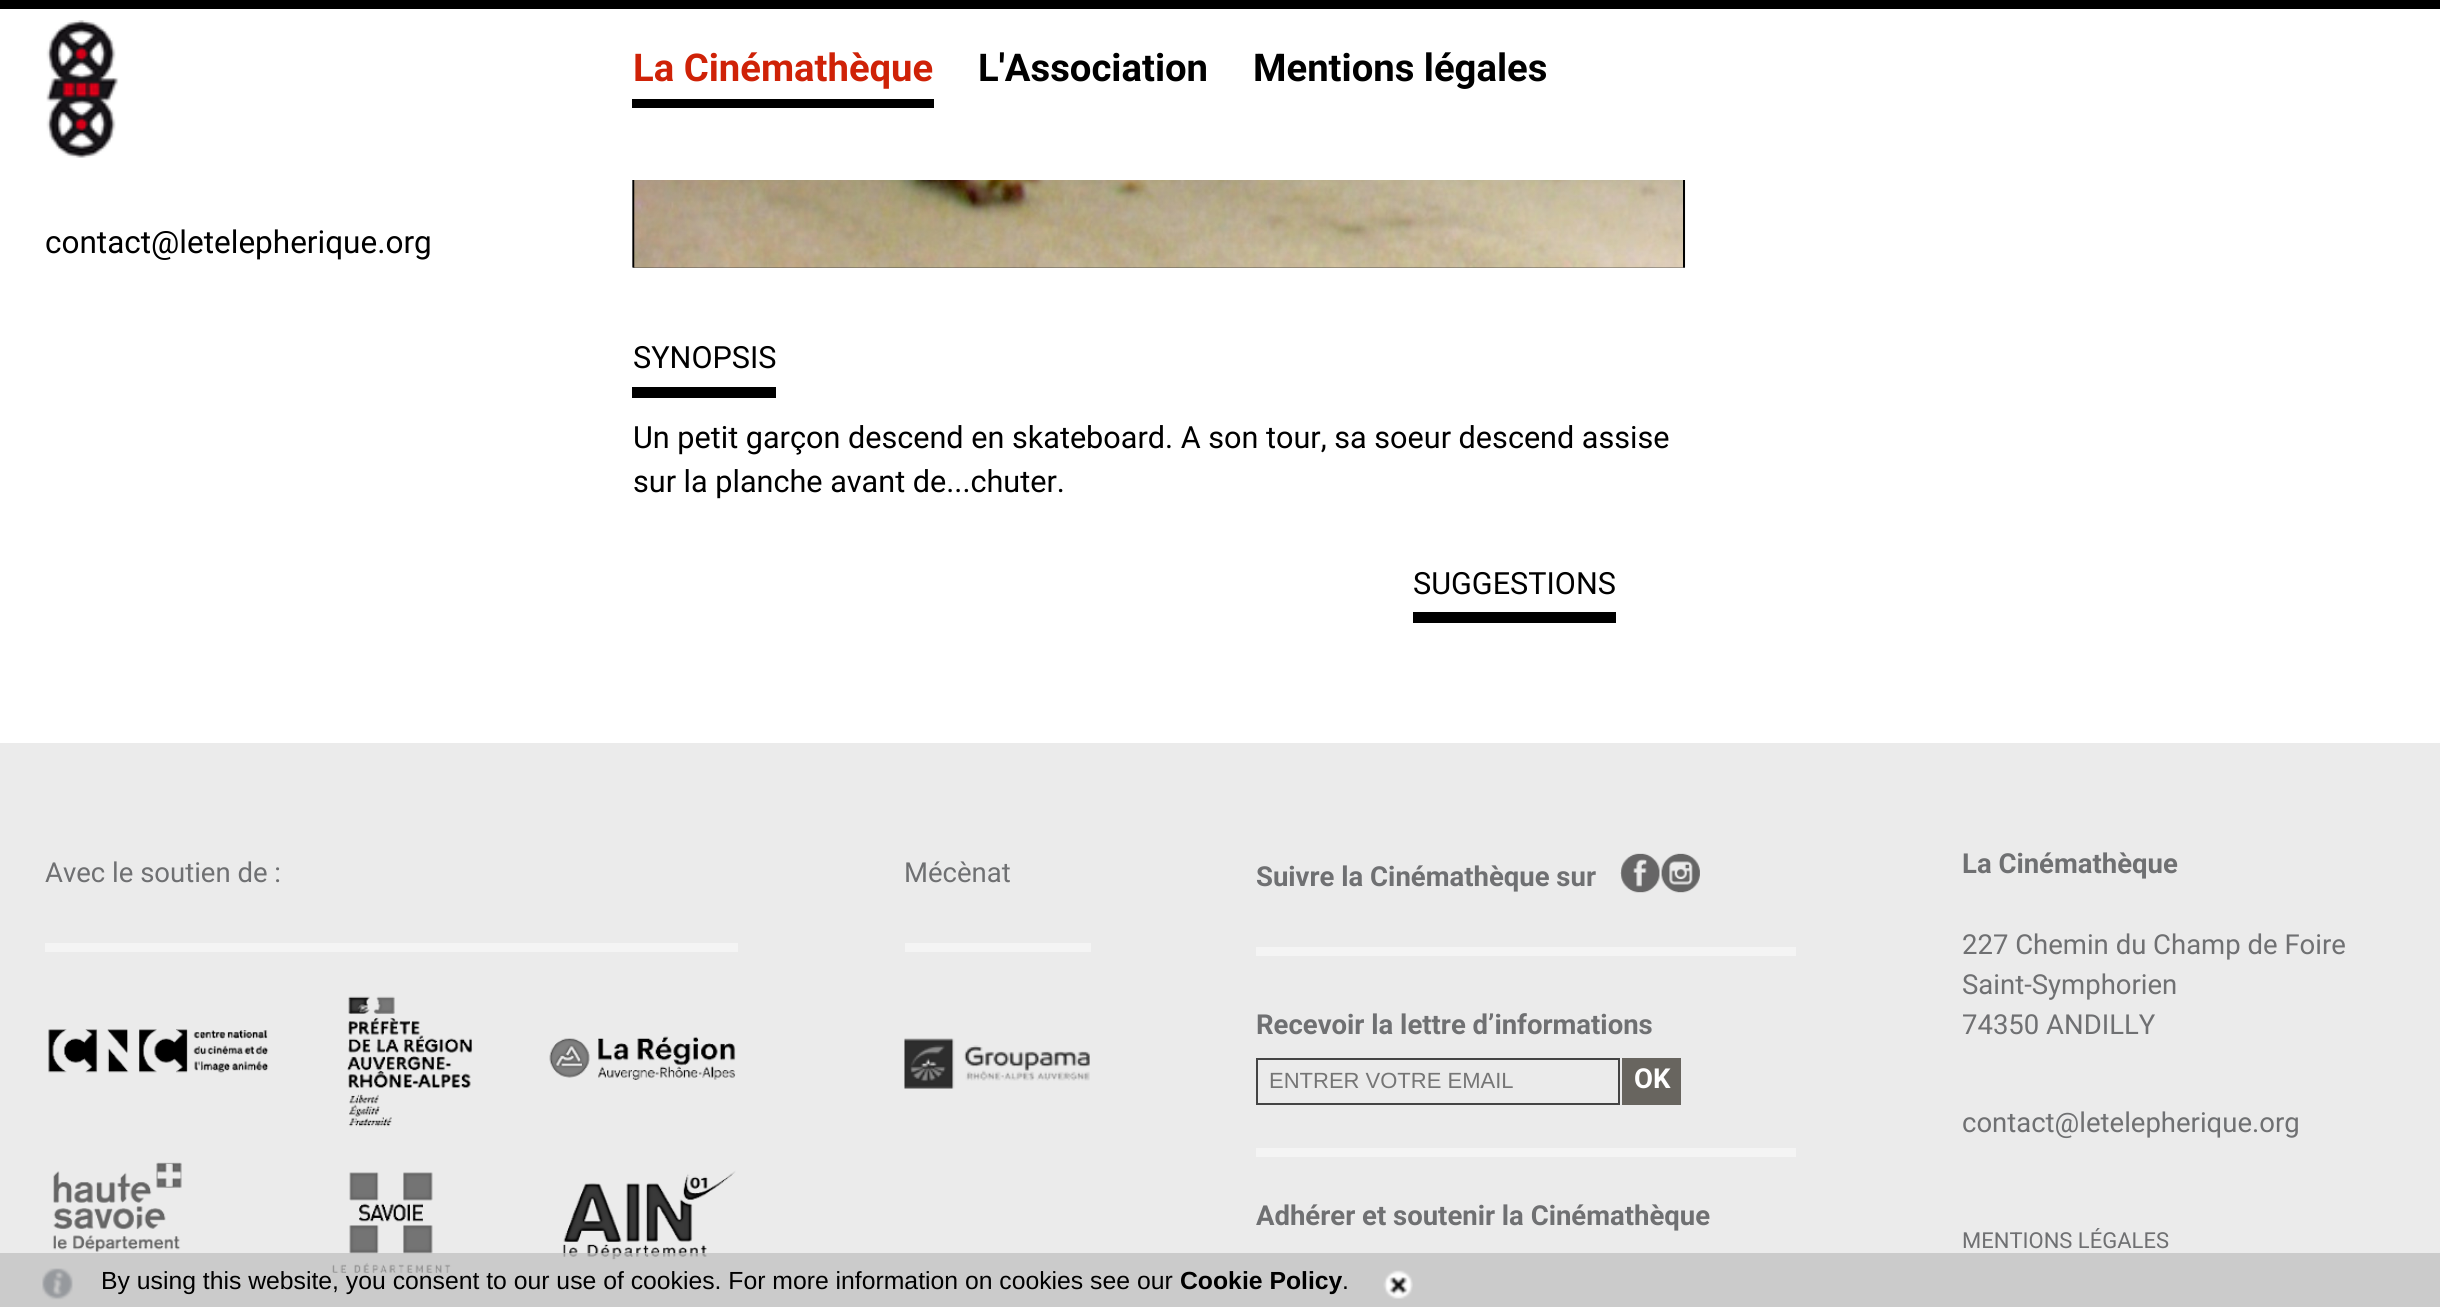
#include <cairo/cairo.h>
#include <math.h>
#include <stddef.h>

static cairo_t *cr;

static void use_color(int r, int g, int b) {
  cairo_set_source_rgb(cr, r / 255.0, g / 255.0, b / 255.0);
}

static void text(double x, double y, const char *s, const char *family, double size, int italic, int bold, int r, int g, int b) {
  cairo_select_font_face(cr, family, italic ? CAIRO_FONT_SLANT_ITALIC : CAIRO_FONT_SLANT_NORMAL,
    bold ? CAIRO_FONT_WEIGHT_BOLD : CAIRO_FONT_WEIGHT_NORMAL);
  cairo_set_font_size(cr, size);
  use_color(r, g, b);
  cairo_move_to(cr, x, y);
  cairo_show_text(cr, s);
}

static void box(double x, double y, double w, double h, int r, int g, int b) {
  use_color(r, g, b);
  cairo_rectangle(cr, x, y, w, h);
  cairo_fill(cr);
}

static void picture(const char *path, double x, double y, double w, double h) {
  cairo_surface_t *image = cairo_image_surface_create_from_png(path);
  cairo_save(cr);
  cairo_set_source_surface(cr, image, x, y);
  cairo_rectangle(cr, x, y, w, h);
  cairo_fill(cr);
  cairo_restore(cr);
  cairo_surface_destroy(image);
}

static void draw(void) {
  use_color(255, 255, 255);
  cairo_paint(cr);
  box(0, 0, 2440, 9, 0, 0, 0);
  picture("img_01.png", 46, 20, 73, 138);
  box(632, 99, 302, 9, 0, 0, 0);
  picture("img_02.png", 632, 180, 1054, 88);
  box(632, 387, 144, 11, 0, 0, 0);
  box(1413, 612, 203, 11, 0, 0, 0);
  box(0, 743, 2440, 564, 235, 235, 235);
  box(45, 943, 693, 9, 244, 244, 244);
  picture("img_03.png", 48, 996, 688, 277);
  box(905, 943, 186, 9, 244, 244, 244);
  picture("img_04.png", 904, 1038, 186, 51);
  box(1256, 947, 540, 9, 244, 244, 244);
  picture("img_05.png", 1620, 853, 40, 40);
  picture("img_06.png", 1661, 853, 39, 40);
  box(1256, 1148, 540, 9, 244, 244, 244);
  cairo_rectangle(cr, 1257, 1059, 362, 45);
  use_color(68, 68, 68);
  cairo_stroke(cr);
  box(1622, 1058, 59, 47, 104, 101, 95);
  cairo_set_source_rgba(cr, 0.753, 0.753, 0.753, 0.75);
  cairo_rectangle(cr, 0, 1253, 2440, 54);
  cairo_fill(cr);
  picture("img_07.png", 42, 1268, 31, 32);
  picture("img_08.png", 1383, 1270, 30, 29);
  text(633, 81, "La Cinémathèque", "Roboto", 38.25, 0, 1, 207, 34, 7);
  text(978, 81, "L'Association", "Roboto", 38.25, 0, 1, 0, 0, 0);
  text(1253, 81, "Mentions légales", "Roboto", 38.25, 0, 1, 0, 0, 0);
  text(45, 253, "contact@letelepherique.org", "Roboto", 31.5, 0, 0, 0, 0, 0);
  text(633, 368, "SYNOPSIS", "Roboto", 30.6, 0, 0, 0, 0, 0);
  text(633, 448, "Un petit garçon descend en skateboard. A son tour, sa soeur descend assise", "Roboto", 30.6, 0, 0, 0, 0, 0);
  text(633, 492, "sur la planche avant de...chuter.", "Roboto", 30.6, 0, 0, 0, 0, 0);
  text(1413, 594, "SUGGESTIONS", "Roboto", 30.6, 0, 0, 0, 0, 0);
  text(45, 882, "Avec le soutien de :", "Roboto", 27.5, 0, 0, 111, 112, 114);
  text(904, 882, "Mécènat", "Roboto", 27.5, 0, 0, 111, 112, 114);
  text(1256, 886, "Suivre la Cinémathèque sur", "Roboto", 27.5, 0, 1, 111, 112, 114);
  text(1256, 1034, "Recevoir la lettre d’informations", "Roboto", 27.5, 0, 1, 111, 112, 114);
  text(1269, 1088, "ENTRER VOTRE EMAIL", "Liberation Sans", 22, 0, 0, 117, 117, 117);
  text(1634, 1088, "OK", "Roboto", 27.5, 0, 1, 255, 255, 255);
  text(1256, 1225, "Adhérer et soutenir la Cinémathèque", "Roboto", 27.5, 0, 1, 111, 112, 114);
  text(1962, 873, "La Cinémathèque", "Roboto", 27.5, 0, 1, 111, 112, 114);
  text(1962, 954, "227 Chemin du Champ de Foire", "Roboto", 27.5, 0, 0, 111, 112, 114);
  text(1962, 994, "Saint-Symphorien", "Roboto", 27.5, 0, 0, 111, 112, 114);
  text(1962, 1034, "74350 ANDILLY", "Roboto", 27.5, 0, 0, 111, 112, 114);
  text(1962, 1132, "contact@letelepherique.org", "Roboto", 27.5, 0, 0, 111, 112, 114);
  text(1962, 1248, "MENTIONS LÉGALES", "Roboto", 22, 0, 0, 111, 112, 114);
  text(101, 1289, "By using this website, you consent to our use of cookies. For more information on cookies see our", "Liberation Sans", 24.75, 0, 0, 0, 0, 0);
  text(1180, 1289, "Cookie Policy", "Liberation Sans", 24.75, 0, 1, 0, 0, 0);
  text(1342, 1289, ".", "Liberation Sans", 24.75, 0, 0, 0, 0, 0);
}

int main(void) {
  cairo_surface_t *surface = cairo_image_surface_create(CAIRO_FORMAT_RGB24, 2440, 1307);
  cr = cairo_create(surface);
  cairo_font_options_t *options = cairo_font_options_create();
  cairo_font_options_set_hint_metrics(options, CAIRO_HINT_METRICS_OFF);
  cairo_font_options_set_hint_style(options, CAIRO_HINT_STYLE_NONE);
  cairo_set_font_options(cr, options);
  cairo_set_miter_limit(cr, 4);
  draw();
  cairo_surface_write_to_png(surface, "out.png");
  cairo_font_options_destroy(options);
  cairo_destroy(cr);
  cairo_surface_destroy(surface);
  return 0;
}
